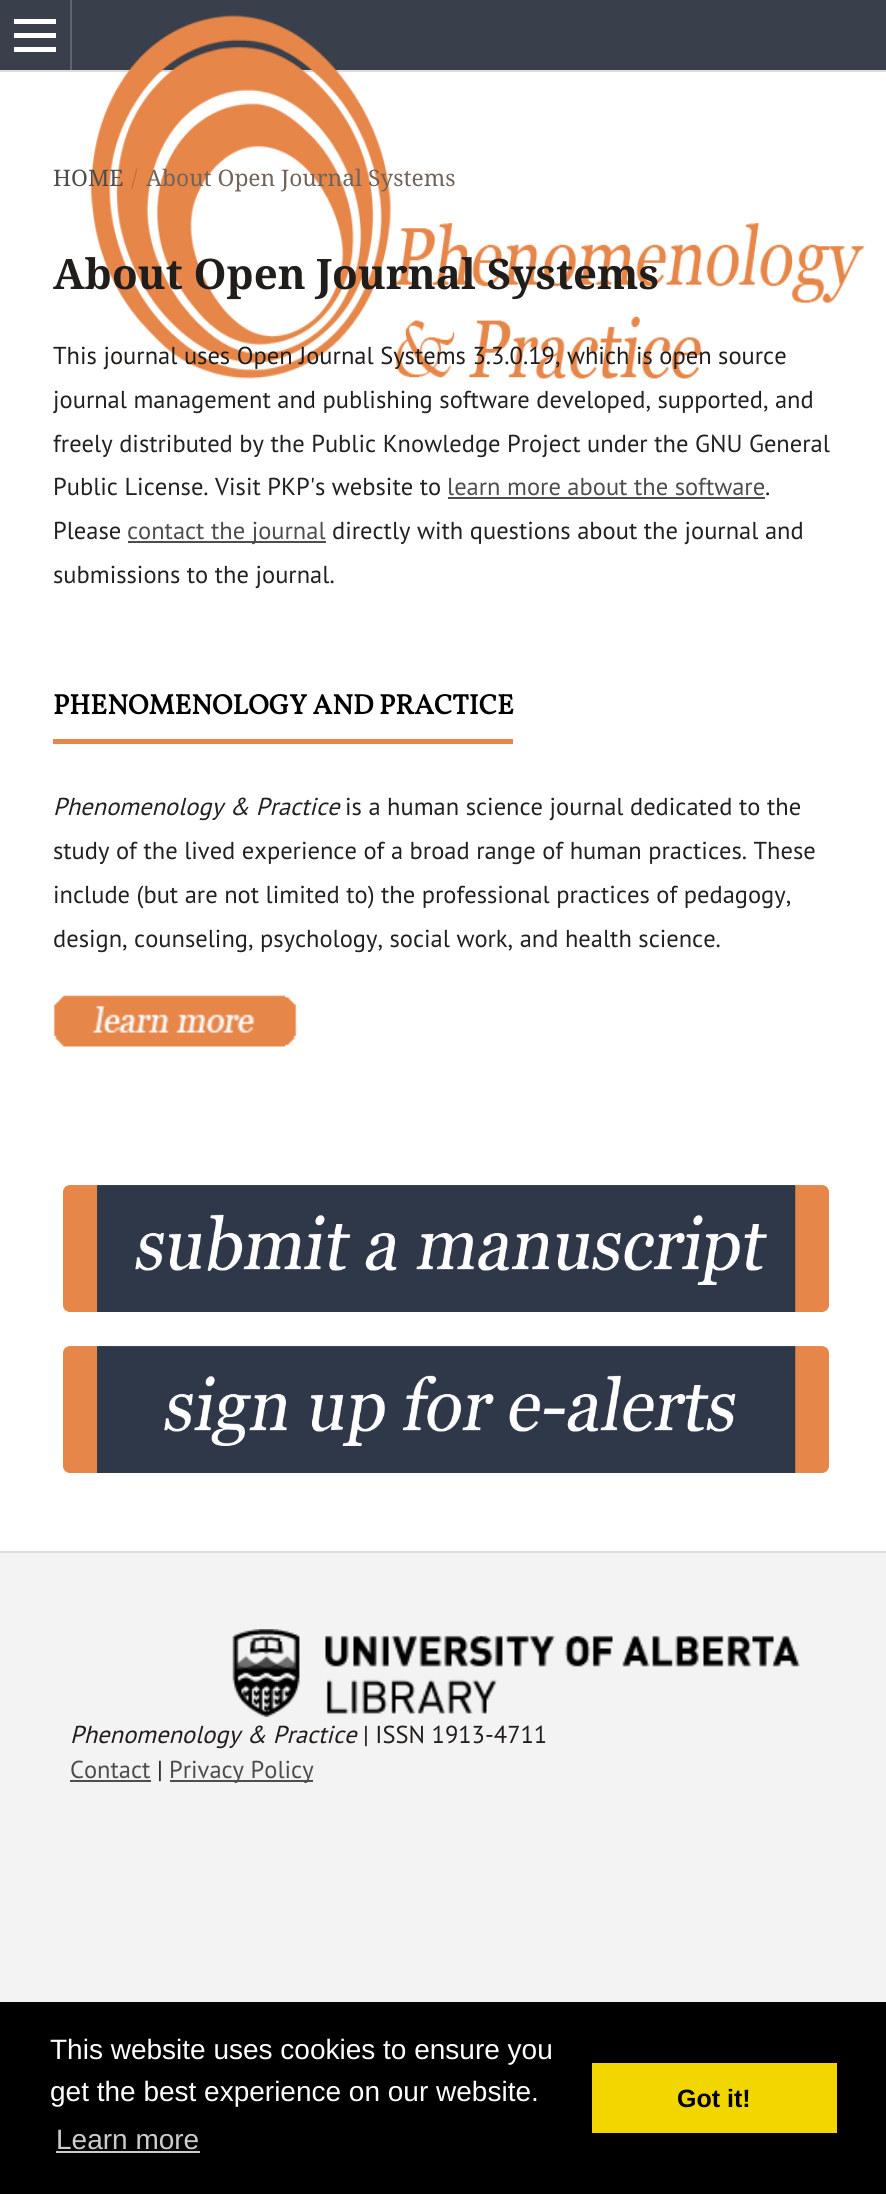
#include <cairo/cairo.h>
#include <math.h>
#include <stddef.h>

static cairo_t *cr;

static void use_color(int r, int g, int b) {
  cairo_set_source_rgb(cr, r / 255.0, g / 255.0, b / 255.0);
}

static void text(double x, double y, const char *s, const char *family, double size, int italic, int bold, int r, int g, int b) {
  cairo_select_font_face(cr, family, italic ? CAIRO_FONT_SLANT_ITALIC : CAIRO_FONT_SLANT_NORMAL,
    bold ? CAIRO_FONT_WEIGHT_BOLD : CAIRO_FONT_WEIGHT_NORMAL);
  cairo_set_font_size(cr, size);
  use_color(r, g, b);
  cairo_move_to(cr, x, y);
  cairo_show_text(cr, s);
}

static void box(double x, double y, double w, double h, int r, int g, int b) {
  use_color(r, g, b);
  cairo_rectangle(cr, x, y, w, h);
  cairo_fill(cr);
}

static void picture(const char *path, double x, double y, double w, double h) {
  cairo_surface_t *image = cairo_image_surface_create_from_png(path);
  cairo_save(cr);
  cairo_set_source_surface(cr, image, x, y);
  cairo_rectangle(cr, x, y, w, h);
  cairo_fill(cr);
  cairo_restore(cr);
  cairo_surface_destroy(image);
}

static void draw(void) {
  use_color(255, 255, 255);
  cairo_paint(cr);
  box(0, 0, 886, 70, 57, 63, 75);
  box(0, 70, 886, 2, 221, 221, 221);
  box(70, 0, 2, 70, 97, 101, 111);
  box(14, 47, 42, 5, 255, 255, 255);
  box(14, 19, 42, 5, 255, 255, 255);
  box(14, 33, 42, 5, 255, 255, 255);
  picture("img_01.png", 90, 15, 775, 364);
  box(448, 497, 317, 2, 77, 77, 77);
  box(128, 541, 198, 2, 77, 77, 77);
  box(53, 739, 460, 5, 230, 134, 72);
  picture("img_02.png", 53, 995, 244, 52);
  picture("img_03.png", 63, 1185, 766, 127);
  picture("img_04.png", 63, 1346, 766, 127);
  box(0, 1553, 886, 449, 243, 243, 243);
  box(0, 1551, 886, 2, 221, 221, 221);
  picture("img_05.png", 232, 1629, 568, 88);
  box(70, 1780, 81, 2, 77, 77, 77);
  box(170, 1780, 143, 2, 77, 77, 77);
  box(0, 2002, 886, 192, 0, 0, 0);
  box(56, 2151, 144, 2, 204, 204, 204);
  box(592, 2063, 245, 70, 241, 214, 0);
  text(53, 186, "HOME", "Noto Serif", 22.75, 0, 0, 77, 77, 77);
  text(131, 186, "/", "Noto Serif", 22.75, 0, 0, 193, 112, 60);
  text(146, 186, "About Open Journal Systems", "Noto Serif", 22.75, 0, 0, 113, 99, 89);
  text(53, 289, "About Open Journal Systems", "Noto Serif", 42, 0, 1, 32, 29, 27);
  text(53, 364, "This journal uses Open Journal Systems 3.3.0.19, which is open source", "PT Sans", 24.5, 0, 0, 32, 29, 27);
  text(53, 408, "journal management and publishing software developed, supported, and", "PT Sans", 24.5, 0, 0, 33, 33, 33);
  text(53, 452, "freely distributed by the Public Knowledge Project under the GNU General", "PT Sans", 24.5, 0, 0, 33, 33, 33);
  text(53, 495, "Public License. Visit PKP's website to", "PT Sans", 24.5, 0, 0, 33, 33, 33);
  text(447, 495, "learn more about the software", "PT Sans", 24.5, 0, 0, 77, 77, 77);
  text(765, 495, ".", "PT Sans", 24.5, 0, 0, 33, 33, 33);
  text(53, 539, "Please", "PT Sans", 24.5, 0, 0, 33, 33, 33);
  text(127, 539, "contact the journal", "PT Sans", 24.5, 0, 0, 77, 77, 77);
  text(332, 539, "directly with questions about the journal and", "PT Sans", 24.5, 0, 0, 33, 33, 33);
  text(53, 583, "submissions to the journal.", "PT Sans", 24.5, 0, 0, 33, 33, 33);
  text(53, 714, "PHENOMENOLOGY AND PRACTICE", "Vollkorn", 28, 0, 1, 0, 0, 0);
  text(53, 815, "Phenomenology & Practice", "PT Sans", 24.5, 1, 0, 33, 33, 33);
  text(345, 815, "is a human science journal dedicated to the", "PT Sans", 24.5, 0, 0, 33, 33, 33);
  text(53, 859, "study of the lived experience of a broad range of human practices. These", "PT Sans", 24.5, 0, 0, 33, 33, 33);
  text(53, 903, "include (but are not limited to) the professional practices of pedagogy,", "PT Sans", 24.5, 0, 0, 33, 33, 33);
  text(53, 947, "design, counseling, psychology, social work, and health science.", "PT Sans", 24.5, 0, 0, 33, 33, 33);
  text(70, 1743, "Phenomenology & Practice", "PT Sans", 24.5, 1, 0, 32, 29, 27);
  text(363, 1743, "| ISSN 1913-4711", "PT Sans", 24.5, 0, 0, 32, 29, 27);
  text(70, 1778, "Contact", "PT Sans", 24.5, 0, 0, 77, 77, 77);
  text(157, 1778, "|", "PT Sans", 24.5, 0, 0, 32, 29, 27);
  text(169, 1778, "Privacy Policy", "PT Sans", 24.5, 0, 0, 77, 77, 77);
  text(50, 2059, "This website uses cookies to ensure you", "Liberation Sans", 28, 0, 0, 255, 255, 255);
  text(50, 2101, "get the best experience on our website.", "Liberation Sans", 28, 0, 0, 255, 255, 255);
  text(56, 2149, "Learn more", "Liberation Sans", 28, 0, 0, 204, 204, 204);
  text(677, 2107, "Got it!", "Liberation Sans", 25, 0, 1, 0, 0, 0);
}

int main(void) {
  cairo_surface_t *surface = cairo_image_surface_create(CAIRO_FORMAT_RGB24, 886, 2194);
  cr = cairo_create(surface);
  cairo_font_options_t *options = cairo_font_options_create();
  cairo_font_options_set_hint_metrics(options, CAIRO_HINT_METRICS_OFF);
  cairo_font_options_set_hint_style(options, CAIRO_HINT_STYLE_NONE);
  cairo_set_font_options(cr, options);
  cairo_set_miter_limit(cr, 4);
  draw();
  cairo_surface_write_to_png(surface, "out.png");
  cairo_font_options_destroy(options);
  cairo_destroy(cr);
  cairo_surface_destroy(surface);
  return 0;
}
